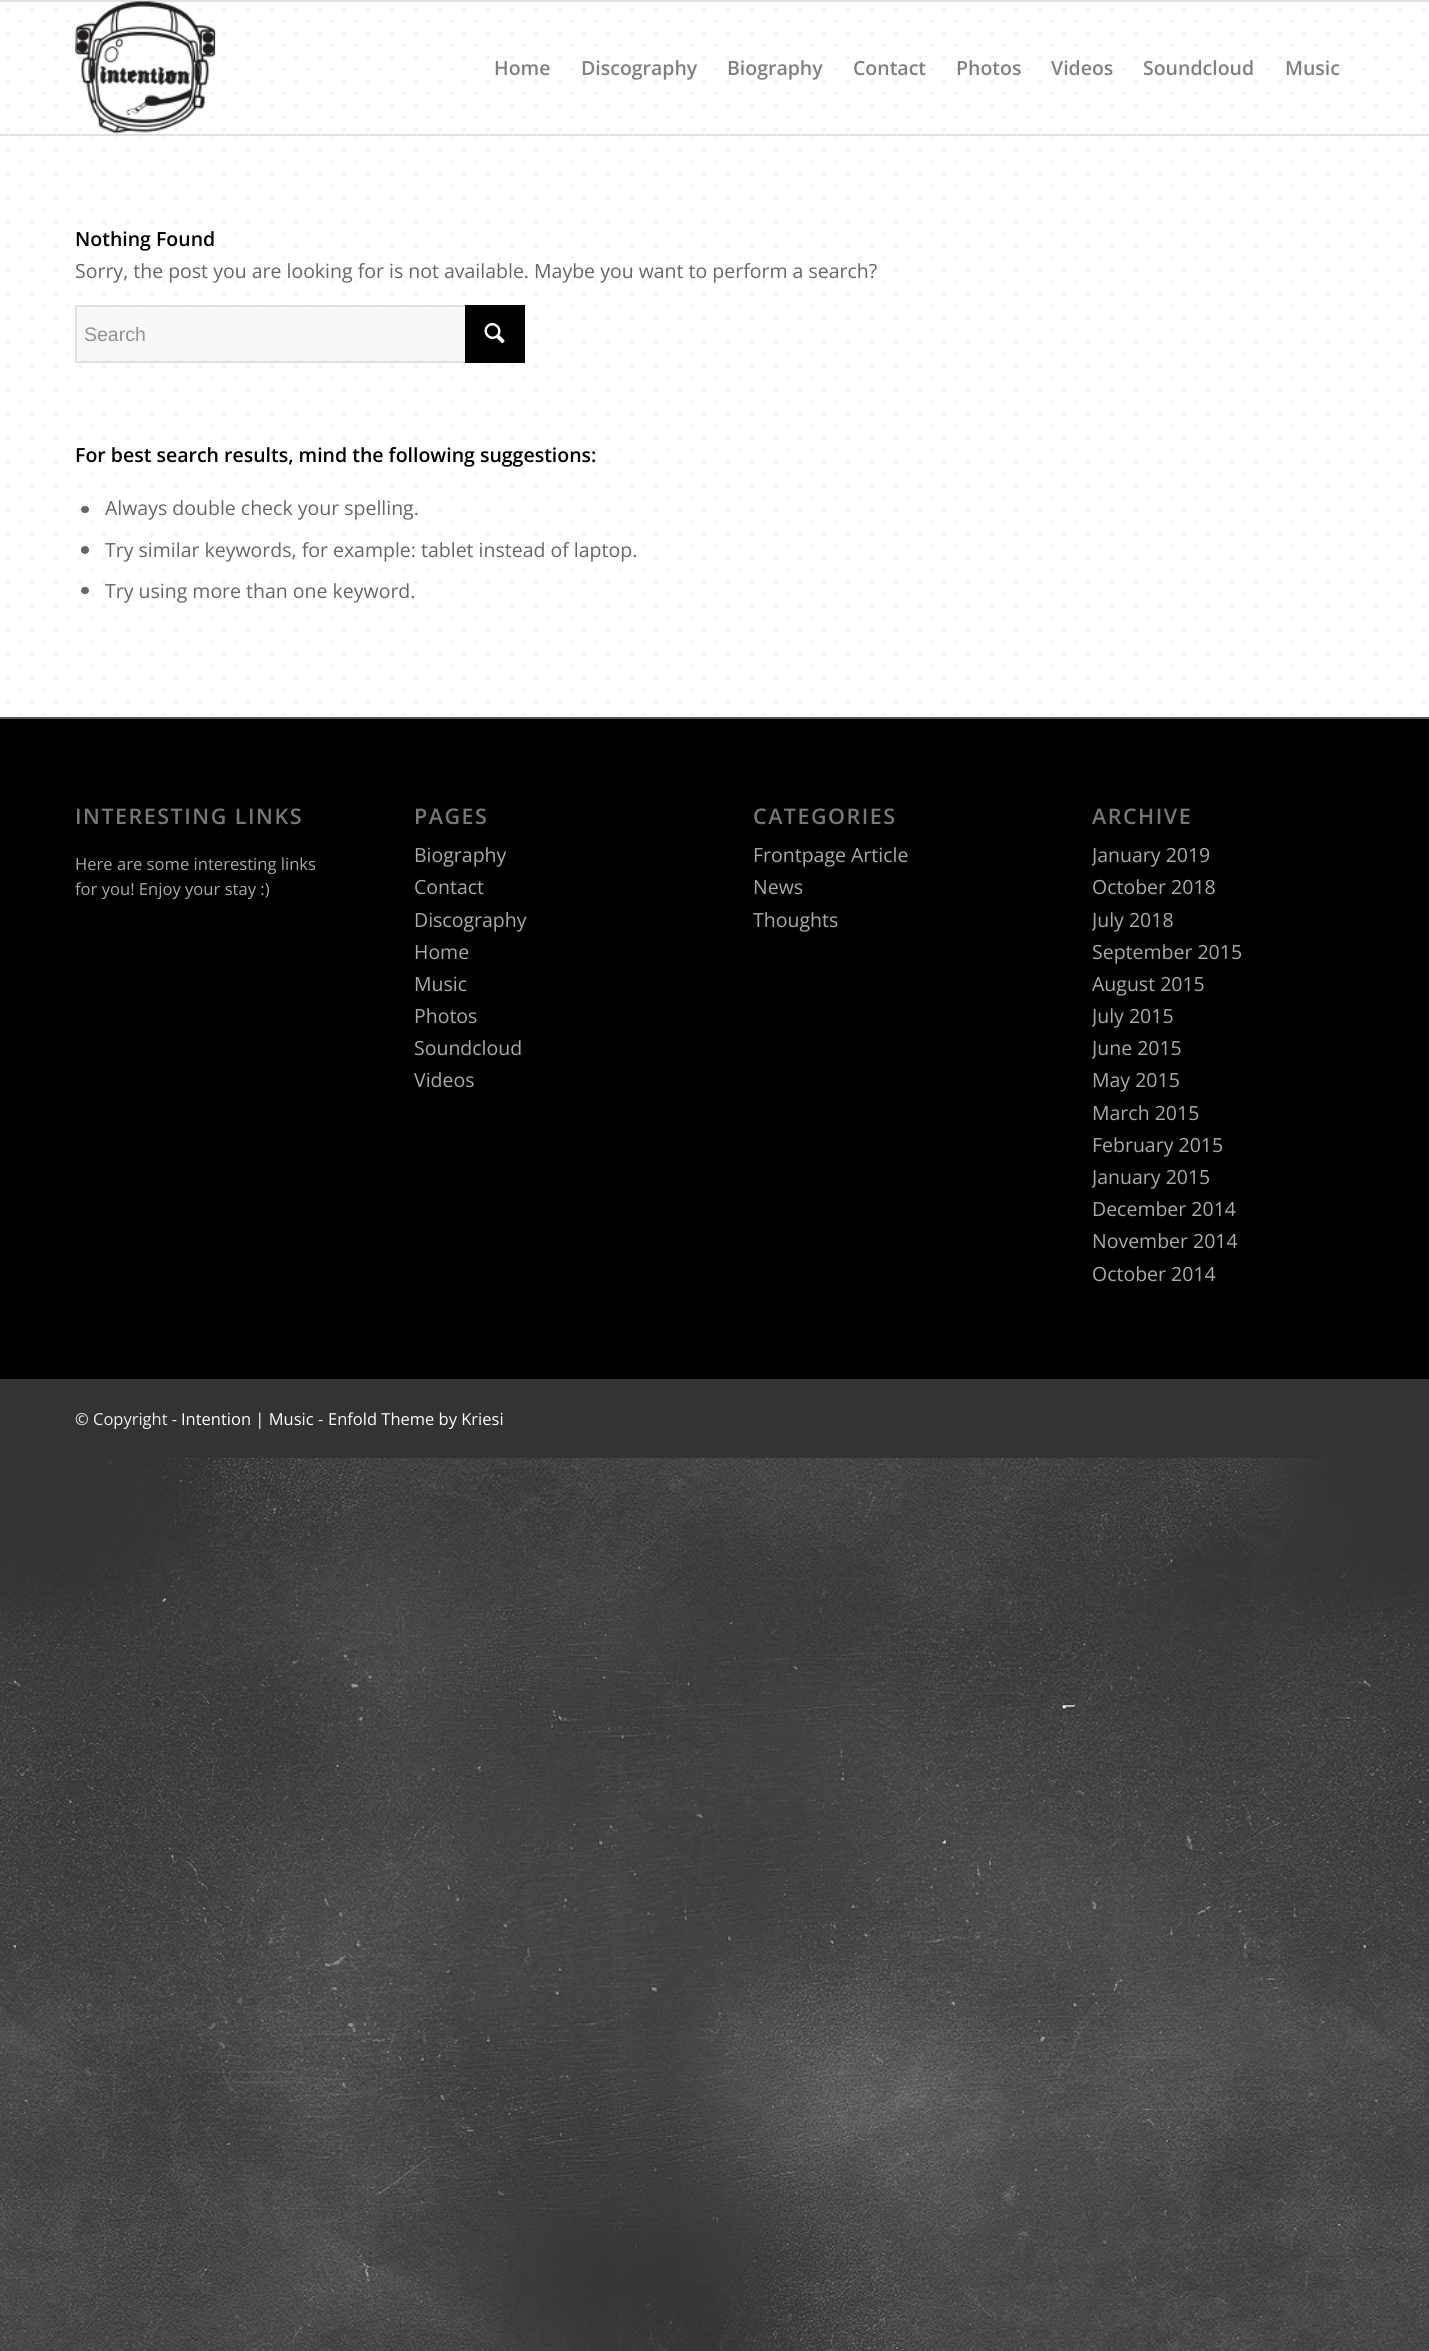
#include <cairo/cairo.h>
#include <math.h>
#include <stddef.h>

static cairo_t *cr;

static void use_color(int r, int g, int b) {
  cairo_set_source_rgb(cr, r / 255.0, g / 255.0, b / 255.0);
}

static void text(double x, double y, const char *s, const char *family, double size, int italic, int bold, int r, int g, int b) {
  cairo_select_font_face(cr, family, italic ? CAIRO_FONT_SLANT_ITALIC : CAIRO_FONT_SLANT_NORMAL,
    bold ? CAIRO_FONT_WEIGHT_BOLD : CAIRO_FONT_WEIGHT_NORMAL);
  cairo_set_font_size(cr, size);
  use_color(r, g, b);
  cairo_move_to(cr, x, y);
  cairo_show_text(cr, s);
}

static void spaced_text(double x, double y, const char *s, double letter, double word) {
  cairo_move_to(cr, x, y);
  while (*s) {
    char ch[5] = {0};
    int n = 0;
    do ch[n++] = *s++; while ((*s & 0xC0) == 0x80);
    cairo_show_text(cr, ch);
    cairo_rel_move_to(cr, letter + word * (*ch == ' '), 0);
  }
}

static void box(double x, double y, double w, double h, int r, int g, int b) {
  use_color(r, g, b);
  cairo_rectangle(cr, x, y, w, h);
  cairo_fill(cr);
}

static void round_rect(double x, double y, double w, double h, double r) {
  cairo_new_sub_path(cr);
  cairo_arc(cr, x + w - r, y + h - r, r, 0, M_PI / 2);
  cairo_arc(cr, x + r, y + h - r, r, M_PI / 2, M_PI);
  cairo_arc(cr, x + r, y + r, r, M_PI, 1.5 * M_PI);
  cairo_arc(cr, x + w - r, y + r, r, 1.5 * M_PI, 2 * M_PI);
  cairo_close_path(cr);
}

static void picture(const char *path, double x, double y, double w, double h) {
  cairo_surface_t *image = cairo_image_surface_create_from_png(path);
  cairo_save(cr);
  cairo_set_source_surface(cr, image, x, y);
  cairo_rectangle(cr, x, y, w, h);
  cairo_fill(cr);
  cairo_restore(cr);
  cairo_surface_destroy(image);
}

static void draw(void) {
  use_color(51, 51, 51);
  cairo_paint(cr);
  picture("img_01.png", 0, 1458, 1429, 893);
  box(0, 2, 1429, 715, 255, 255, 255);
  picture("img_02.png", 6, 7, 1420, 124);
  box(0, 0, 1429, 2, 225, 225, 225);
  box(0, 134, 1429, 2, 225, 225, 225);
  picture("img_03.png", 75, 1, 142, 133);
  picture("img_04.png", 6, 136, 1420, 580);
  box(77, 307, 388, 54, 248, 248, 248);
  cairo_rectangle(cr, 76, 306, 448, 56);
  use_color(225, 225, 225);
  cairo_stroke(cr);
  box(465, 305, 60, 58, 0, 0, 0);
  picture("img_05.png", 484, 323, 21, 21);
  use_color(102, 102, 102);
  round_rect(81, 506, 8, 7, 3.5);
  cairo_fill(cr);
  cairo_arc(cr, 85, 550, 4, 0, 2 * M_PI);
  cairo_fill(cr);
  round_rect(81, 587, 8, 7, 3.5);
  cairo_fill(cr);
  box(0, 719, 1429, 660, 0, 0, 0);
  box(0, 717, 1429, 2, 85, 85, 85);
  text(494, 75, "Home", "Open Sans SemiBold", 19.5, 0, 0, 128, 128, 128);
  text(581, 75, "Discography", "Open Sans SemiBold", 19.5, 0, 0, 128, 128, 128);
  text(727, 75, "Biography", "Open Sans SemiBold", 19.5, 0, 0, 128, 128, 128);
  text(853, 75, "Contact", "Open Sans SemiBold", 19.5, 0, 0, 128, 128, 128);
  text(956, 75, "Photos", "Open Sans SemiBold", 19.5, 0, 0, 128, 128, 128);
  text(1051, 75, "Videos", "Open Sans SemiBold", 19.5, 0, 0, 128, 128, 128);
  text(1143, 75, "Soundcloud", "Open Sans SemiBold", 19.5, 0, 0, 128, 128, 128);
  text(1285, 75, "Music", "Open Sans SemiBold", 19.5, 0, 0, 128, 128, 128);
  text(75, 246, "Nothing Found", "Open Sans SemiBold", 19.5, 0, 0, 0, 0, 0);
  text(75, 278, "Sorry, the post you are looking for is not available. Maybe you want to perform a search?", "Open Sans", 19.5, 0, 0, 102, 102, 102);
  text(84, 341, "Search", "Liberation Sans", 19.5, 0, 0, 145, 145, 145);
  text(75, 462, "For best search results, mind the following suggestions:", "Open Sans SemiBold", 19.5, 0, 0, 0, 0, 0);
  text(105, 515, "Always double check your spelling.", "Open Sans", 19.5, 0, 0, 102, 102, 102);
  text(105, 557, "Try similar keywords, for example: tablet instead of laptop.", "Open Sans", 19.5, 0, 0, 102, 102, 102);
  text(105, 598, "Try using more than one keyword.", "Open Sans", 19.5, 0, 0, 102, 102, 102);
  cairo_select_font_face(cr, "Open Sans SemiBold", CAIRO_FONT_SLANT_NORMAL, CAIRO_FONT_WEIGHT_NORMAL);
  cairo_set_font_size(cr, 21.5);
  use_color(119, 119, 119);
  spaced_text(75, 824, "INTERESTING LINKS", 1.5, 0);
  text(75, 870, "Here are some interesting links", "Open Sans", 16.6, 0, 0, 170, 170, 170);
  text(75, 895, "for you! Enjoy your stay :)", "Open Sans", 16.6, 0, 0, 170, 170, 170);
  cairo_select_font_face(cr, "Open Sans SemiBold", CAIRO_FONT_SLANT_NORMAL, CAIRO_FONT_WEIGHT_NORMAL);
  cairo_set_font_size(cr, 21.5);
  use_color(119, 119, 119);
  spaced_text(414, 824, "PAGES", 1.5, 0);
  text(414, 862, "Biography", "Open Sans", 19.5, 0, 0, 170, 170, 170);
  text(414, 894, "Contact", "Open Sans", 19.5, 0, 0, 170, 170, 170);
  text(414, 927, "Discography", "Open Sans", 19.5, 0, 0, 170, 170, 170);
  text(414, 959, "Home", "Open Sans", 19.5, 0, 0, 170, 170, 170);
  text(414, 991, "Music", "Open Sans", 19.5, 0, 0, 170, 170, 170);
  text(414, 1023, "Photos", "Open Sans", 19.5, 0, 0, 170, 170, 170);
  text(414, 1055, "Soundcloud", "Open Sans", 19.5, 0, 0, 170, 170, 170);
  text(414, 1087, "Videos", "Open Sans", 19.5, 0, 0, 170, 170, 170);
  cairo_select_font_face(cr, "Open Sans SemiBold", CAIRO_FONT_SLANT_NORMAL, CAIRO_FONT_WEIGHT_NORMAL);
  cairo_set_font_size(cr, 21.5);
  use_color(119, 119, 119);
  spaced_text(753, 824, "CATEGORIES", 1.5, 0);
  text(753, 862, "Frontpage Article", "Open Sans", 19.5, 0, 0, 170, 170, 170);
  text(753, 894, "News", "Open Sans", 19.5, 0, 0, 170, 170, 170);
  text(753, 927, "Thoughts", "Open Sans", 19.5, 0, 0, 170, 170, 170);
  cairo_select_font_face(cr, "Open Sans SemiBold", CAIRO_FONT_SLANT_NORMAL, CAIRO_FONT_WEIGHT_NORMAL);
  cairo_set_font_size(cr, 21.5);
  use_color(119, 119, 119);
  spaced_text(1092, 824, "ARCHIVE", 1.5, 0);
  cairo_save(cr);
  cairo_rectangle(cr, 1092, 786, 263, 504);
  cairo_clip(cr);
  text(1092, 862, "January 2019", "Open Sans", 19.5, 0, 0, 170, 170, 170);
  cairo_restore(cr);
  text(1092, 894, "October 2018", "Open Sans", 19.5, 0, 0, 170, 170, 170);
  cairo_save(cr);
  cairo_rectangle(cr, 1092, 786, 263, 504);
  cairo_clip(cr);
  text(1092, 927, "July 2018", "Open Sans", 19.5, 0, 0, 170, 170, 170);
  cairo_restore(cr);
  text(1092, 959, "September 2015", "Open Sans", 19.5, 0, 0, 170, 170, 170);
  text(1092, 991, "August 2015", "Open Sans", 19.5, 0, 0, 170, 170, 170);
  cairo_save(cr);
  cairo_rectangle(cr, 1092, 786, 263, 504);
  cairo_clip(cr);
  text(1092, 1023, "July 2015", "Open Sans", 19.5, 0, 0, 170, 170, 170);
  text(1092, 1055, "June 2015", "Open Sans", 19.5, 0, 0, 170, 170, 170);
  cairo_restore(cr);
  text(1092, 1087, "May 2015", "Open Sans", 19.5, 0, 0, 170, 170, 170);
  text(1092, 1120, "March 2015", "Open Sans", 19.5, 0, 0, 170, 170, 170);
  text(1092, 1152, "February 2015", "Open Sans", 19.5, 0, 0, 170, 170, 170);
  cairo_save(cr);
  cairo_rectangle(cr, 1092, 786, 263, 504);
  cairo_clip(cr);
  text(1092, 1184, "January 2015", "Open Sans", 19.5, 0, 0, 170, 170, 170);
  cairo_restore(cr);
  text(1092, 1216, "December 2014", "Open Sans", 19.5, 0, 0, 170, 170, 170);
  text(1092, 1248, "November 2014", "Open Sans", 19.5, 0, 0, 170, 170, 170);
  text(1092, 1281, "October 2014", "Open Sans", 19.5, 0, 0, 170, 170, 170);
  text(75, 1425, "© Copyright -", "Open Sans", 16.5, 0, 0, 238, 238, 238);
  text(181, 1425, "Intention | Music", "Open Sans", 16.5, 0, 0, 255, 255, 255);
  text(318, 1425, "-", "Open Sans", 16.5, 0, 0, 238, 238, 238);
  text(328, 1425, "Enfold Theme by Kriesi", "Open Sans", 16.5, 0, 0, 255, 255, 255);
}

int main(void) {
  cairo_surface_t *surface = cairo_image_surface_create(CAIRO_FORMAT_RGB24, 1429, 2351);
  cr = cairo_create(surface);
  cairo_font_options_t *options = cairo_font_options_create();
  cairo_font_options_set_hint_metrics(options, CAIRO_HINT_METRICS_OFF);
  cairo_font_options_set_hint_style(options, CAIRO_HINT_STYLE_NONE);
  cairo_set_font_options(cr, options);
  cairo_set_miter_limit(cr, 4);
  draw();
  cairo_surface_write_to_png(surface, "out.png");
  cairo_font_options_destroy(options);
  cairo_destroy(cr);
  cairo_surface_destroy(surface);
  return 0;
}
